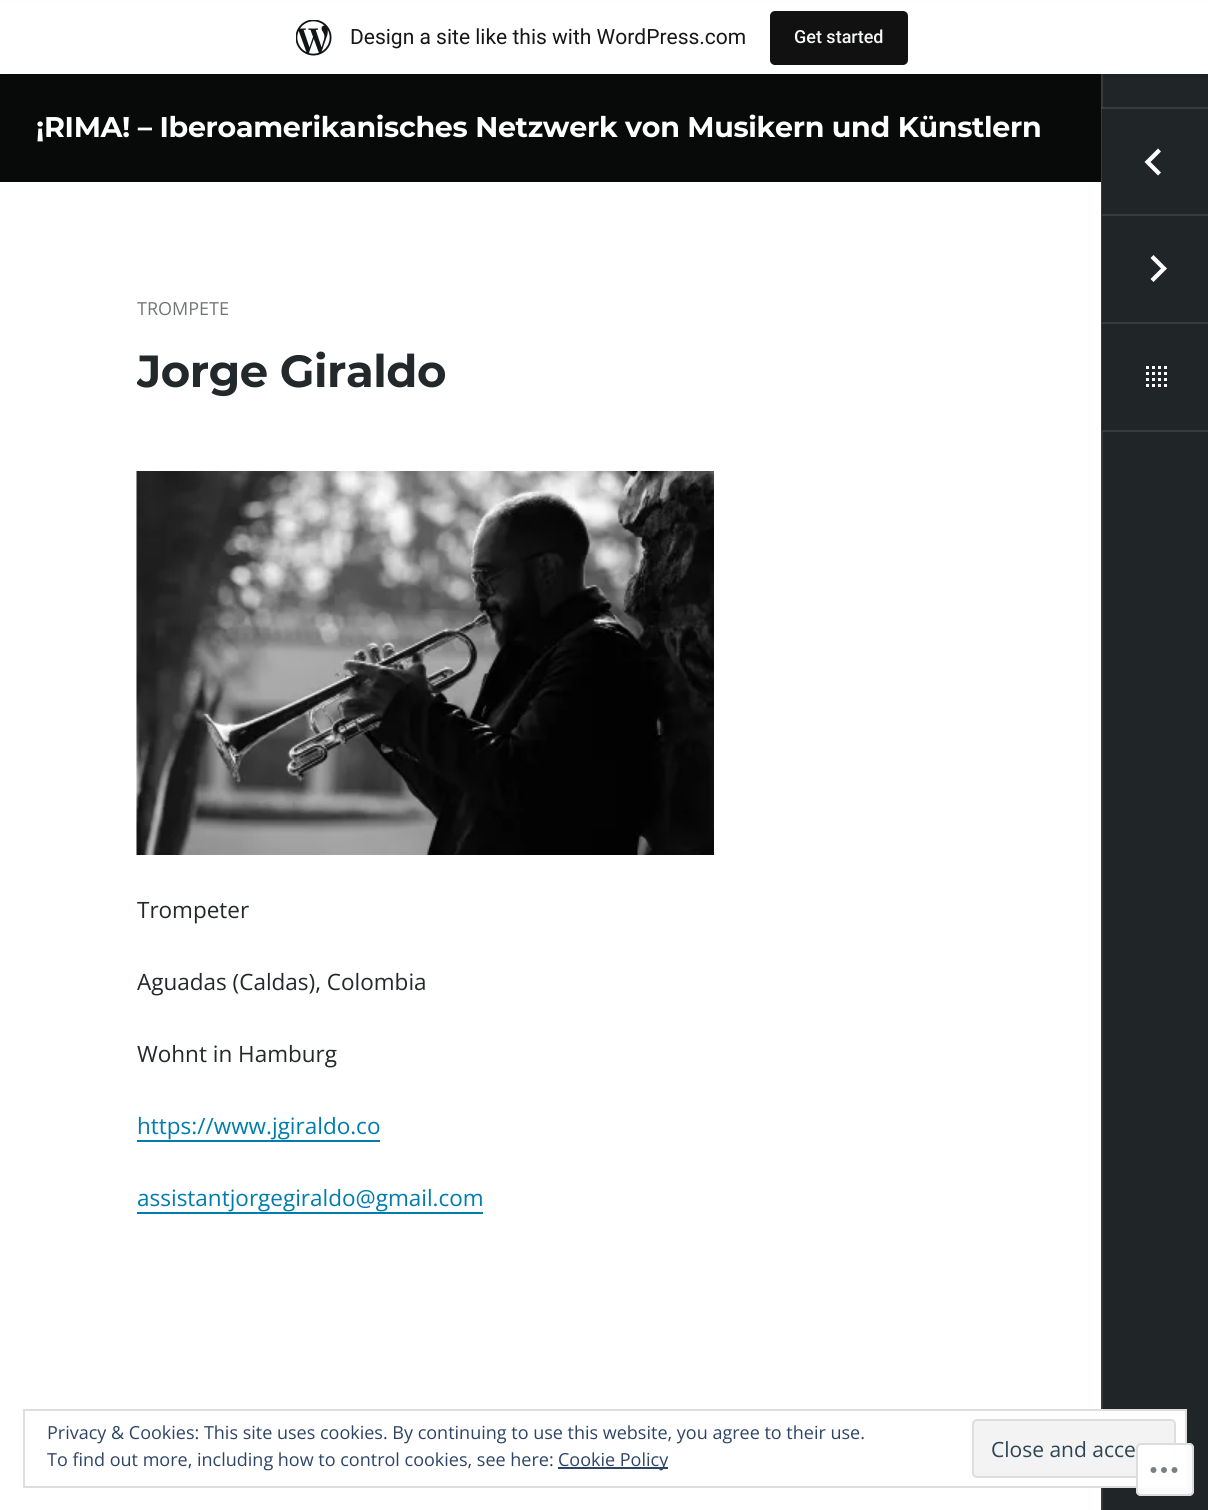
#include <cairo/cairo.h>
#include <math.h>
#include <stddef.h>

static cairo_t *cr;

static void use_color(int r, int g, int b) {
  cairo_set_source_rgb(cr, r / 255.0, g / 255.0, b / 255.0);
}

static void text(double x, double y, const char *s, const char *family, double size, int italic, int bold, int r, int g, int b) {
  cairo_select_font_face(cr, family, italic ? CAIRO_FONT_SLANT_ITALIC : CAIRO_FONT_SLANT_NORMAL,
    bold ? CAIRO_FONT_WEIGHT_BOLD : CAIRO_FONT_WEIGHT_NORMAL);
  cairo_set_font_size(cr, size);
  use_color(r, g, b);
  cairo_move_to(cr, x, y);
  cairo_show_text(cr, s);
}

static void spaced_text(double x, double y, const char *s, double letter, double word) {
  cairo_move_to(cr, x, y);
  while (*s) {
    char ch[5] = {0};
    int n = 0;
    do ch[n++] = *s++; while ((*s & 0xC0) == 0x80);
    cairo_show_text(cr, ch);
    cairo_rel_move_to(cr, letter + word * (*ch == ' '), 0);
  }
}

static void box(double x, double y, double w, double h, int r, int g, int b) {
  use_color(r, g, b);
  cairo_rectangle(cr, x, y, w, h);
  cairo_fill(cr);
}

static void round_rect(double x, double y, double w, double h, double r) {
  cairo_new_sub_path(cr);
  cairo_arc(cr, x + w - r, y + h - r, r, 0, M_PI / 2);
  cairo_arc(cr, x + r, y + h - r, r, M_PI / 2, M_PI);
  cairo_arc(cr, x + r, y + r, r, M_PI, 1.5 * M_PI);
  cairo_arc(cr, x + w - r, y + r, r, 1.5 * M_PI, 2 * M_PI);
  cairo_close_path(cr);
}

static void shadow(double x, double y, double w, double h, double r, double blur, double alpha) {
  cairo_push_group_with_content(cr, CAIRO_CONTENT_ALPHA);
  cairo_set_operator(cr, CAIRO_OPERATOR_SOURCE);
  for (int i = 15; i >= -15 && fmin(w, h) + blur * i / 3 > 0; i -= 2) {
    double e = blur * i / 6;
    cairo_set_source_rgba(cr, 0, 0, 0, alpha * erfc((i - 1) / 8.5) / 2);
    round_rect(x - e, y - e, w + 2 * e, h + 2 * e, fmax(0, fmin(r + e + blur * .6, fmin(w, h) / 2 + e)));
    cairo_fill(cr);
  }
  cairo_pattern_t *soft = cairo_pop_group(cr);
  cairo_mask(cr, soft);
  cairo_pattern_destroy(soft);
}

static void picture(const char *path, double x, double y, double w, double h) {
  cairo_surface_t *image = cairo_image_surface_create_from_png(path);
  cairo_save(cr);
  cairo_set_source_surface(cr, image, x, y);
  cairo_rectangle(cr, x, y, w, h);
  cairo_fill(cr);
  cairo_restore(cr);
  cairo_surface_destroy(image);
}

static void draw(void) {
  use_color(255, 255, 255);
  cairo_paint(cr);
  box(0, 74, 1101, 108, 8, 10, 10);
  box(1103, 74, 105, 1436, 32, 38, 40);
  box(1101, 74, 2, 1436, 54, 60, 62);
  use_color(0, 0, 0);
  shadow(0, 2, 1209, 73, 0, 1.5, 0.05);
  cairo_set_source_rgba(cr, 0, 0, 0, 0.08);
  cairo_new_path(cr);
  cairo_move_to(cr, 2, 74);
  cairo_line_to(cr, 2, 78);
  cairo_line_to(cr, 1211, 78);
  cairo_line_to(cr, 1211, 5);
  cairo_line_to(cr, 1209, 5);
  cairo_line_to(cr, 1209, 74);
  cairo_close_path(cr);
  cairo_fill(cr);
  box(0, 1, 1208, 73, 255, 255, 255);
  picture("img_01.png", 296, 20, 36, 36);
  use_color(17, 17, 17);
  round_rect(770, 11, 138, 54, 5);
  cairo_fill(cr);
  box(1101, 108, 2, 324, 32, 38, 40);
  use_color(54, 60, 62);
  cairo_new_path(cr);
  cairo_move_to(cr, 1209, 216);
  cairo_line_to(cr, 1101, 216);
  cairo_line_to(cr, 1102, 214);
  cairo_line_to(cr, 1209, 214);
  cairo_close_path(cr);
  cairo_fill(cr);
  cairo_set_source_rgba(cr, 1, 1, 1, 0.1);
  cairo_new_path(cr);
  cairo_move_to(cr, 1101, 216);
  cairo_line_to(cr, 1101, 108);
  cairo_line_to(cr, 1102, 108);
  cairo_line_to(cr, 1102, 214);
  cairo_close_path(cr);
  cairo_fill(cr);
  cairo_rectangle(cr, 1101, 107, 107, 2);
  cairo_fill(cr);
  picture("img_02.png", 136, 471, 578, 384);
  box(137, 1140, 243, 2, 0, 124, 173);
  box(137, 1212, 346, 2, 0, 124, 173);
  use_color(255, 255, 255);
  cairo_new_path(cr);
  cairo_move_to(cr, 1161, 172.5);
  cairo_line_to(cr, 1158, 175.5);
  cairo_line_to(cr, 1144.5, 162);
  cairo_line_to(cr, 1158, 148.5);
  cairo_line_to(cr, 1161, 151.5);
  cairo_line_to(cr, 1150.5, 162);
  cairo_close_path(cr);
  cairo_fill(cr);
  use_color(54, 60, 62);
  cairo_new_path(cr);
  cairo_move_to(cr, 1101, 324);
  cairo_line_to(cr, 1101, 216);
  cairo_line_to(cr, 1102, 216);
  cairo_line_to(cr, 1102, 322);
  cairo_close_path(cr);
  cairo_fill(cr);
  cairo_set_source_rgba(cr, 1, 1, 1, 0.1);
  cairo_new_path(cr);
  cairo_move_to(cr, 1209, 324);
  cairo_line_to(cr, 1101, 324);
  cairo_line_to(cr, 1102, 322);
  cairo_line_to(cr, 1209, 322);
  cairo_close_path(cr);
  cairo_fill(cr);
  use_color(255, 255, 255);
  cairo_new_path(cr);
  cairo_move_to(cr, 1150.5, 258);
  cairo_line_to(cr, 1153.5, 255);
  cairo_line_to(cr, 1167, 268.5);
  cairo_line_to(cr, 1153.5, 282);
  cairo_line_to(cr, 1150.5, 279);
  cairo_line_to(cr, 1161, 268.5);
  cairo_close_path(cr);
  cairo_fill(cr);
  use_color(54, 60, 62);
  cairo_new_path(cr);
  cairo_move_to(cr, 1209, 432);
  cairo_line_to(cr, 1101, 432);
  cairo_line_to(cr, 1102, 430);
  cairo_line_to(cr, 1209, 430);
  cairo_close_path(cr);
  cairo_fill(cr);
  cairo_set_source_rgba(cr, 1, 1, 1, 0.1);
  cairo_new_path(cr);
  cairo_move_to(cr, 1101, 432);
  cairo_line_to(cr, 1101, 324);
  cairo_line_to(cr, 1102, 324);
  cairo_line_to(cr, 1102, 430);
  cairo_close_path(cr);
  cairo_fill(cr);
  picture("img_03.png", 1146, 366, 21, 21);
  box(1101, 1411, 84, 75, 255, 255, 255);
  cairo_rectangle(cr, 24, 1410, 1162, 77);
  use_color(222, 222, 222);
  cairo_stroke(cr);
  use_color(243, 243, 243);
  round_rect(973, 1420, 202, 57, 4);
  cairo_fill_preserve(cr);
  use_color(222, 222, 222);
  cairo_stroke(cr);
  box(558, 1467, 110, 2, 46, 68, 103);
  cairo_set_source_rgba(cr, 1, 1, 1, 0.98);
  round_rect(1136, 1443, 58, 53, 5);
  cairo_fill(cr);
  round_rect(1137, 1444, 56, 51, 4);
  cairo_set_source_rgba(cr, 0.863, 0.863, 0.871, 0.98);
  cairo_stroke(cr);
  picture("img_04.png", 1150, 1467, 28, 6);
  text(350, 44, "Design a site like this with WordPress.com", "Roboto", 21, 0, 0, 23, 23, 23);
  text(794, 43, "Get started", "Roboto Medium", 18, 0, 0, 246, 247, 247);
  cairo_select_font_face(cr, "Montserrat", CAIRO_FONT_SLANT_NORMAL, CAIRO_FONT_WEIGHT_BOLD);
  cairo_set_font_size(cr, 28.5);
  use_color(255, 255, 255);
  spaced_text(36, 137, "¡RIMA! – Iberoamerikanisches Netzwerk von Musikern und Künstlern", -0.3, 0);
  text(137, 315, "TROMPETE", "Open Sans", 18, 0, 0, 115, 118, 120);
  cairo_save(cr);
  cairo_rectangle(cr, 137, 290, 828, 181);
  cairo_clip(cr);
  cairo_select_font_face(cr, "Montserrat", CAIRO_FONT_SLANT_NORMAL, CAIRO_FONT_WEIGHT_BOLD);
  cairo_set_font_size(cr, 45);
  use_color(35, 41, 43);
  spaced_text(137, 387, "Jorge Giraldo", -0.5, 0);
  cairo_restore(cr);
  text(137, 918, "Trompeter", "Open Sans", 22.5, 0, 0, 35, 41, 43);
  text(137, 990, "Aguadas (Caldas), Colombia", "Open Sans", 22.5, 0, 0, 35, 41, 43);
  text(137, 1062, "Wohnt in Hamburg", "Open Sans", 22.5, 0, 0, 35, 41, 43);
  text(137, 1134, "https://www.jgiraldo.co", "Open Sans", 22.5, 0, 0, 0, 124, 173);
  text(137, 1206, "assistantjorgegiraldo@gmail.com", "Open Sans", 22.5, 0, 0, 0, 124, 173);
  text(47, 1439, "Privacy & Cookies: This site uses cookies. By continuing to use this website, you agree to their use.", "Open Sans", 18, 0, 0, 46, 68, 103);
  text(991, 1457, "Close and acce", "Open Sans", 21, 0, 0, 46, 68, 83);
  text(47, 1466, "To find out more, including how to control cookies, see here:", "Open Sans", 18, 0, 0, 46, 68, 103);
  text(558, 1466, "Cookie Policy", "Open Sans", 18, 0, 0, 46, 68, 103);
}

int main(void) {
  cairo_surface_t *surface = cairo_image_surface_create(CAIRO_FORMAT_RGB24, 1208, 1510);
  cr = cairo_create(surface);
  cairo_font_options_t *options = cairo_font_options_create();
  cairo_font_options_set_hint_metrics(options, CAIRO_HINT_METRICS_OFF);
  cairo_font_options_set_hint_style(options, CAIRO_HINT_STYLE_NONE);
  cairo_set_font_options(cr, options);
  cairo_set_miter_limit(cr, 4);
  draw();
  cairo_surface_write_to_png(surface, "out.png");
  cairo_font_options_destroy(options);
  cairo_destroy(cr);
  cairo_surface_destroy(surface);
  return 0;
}
